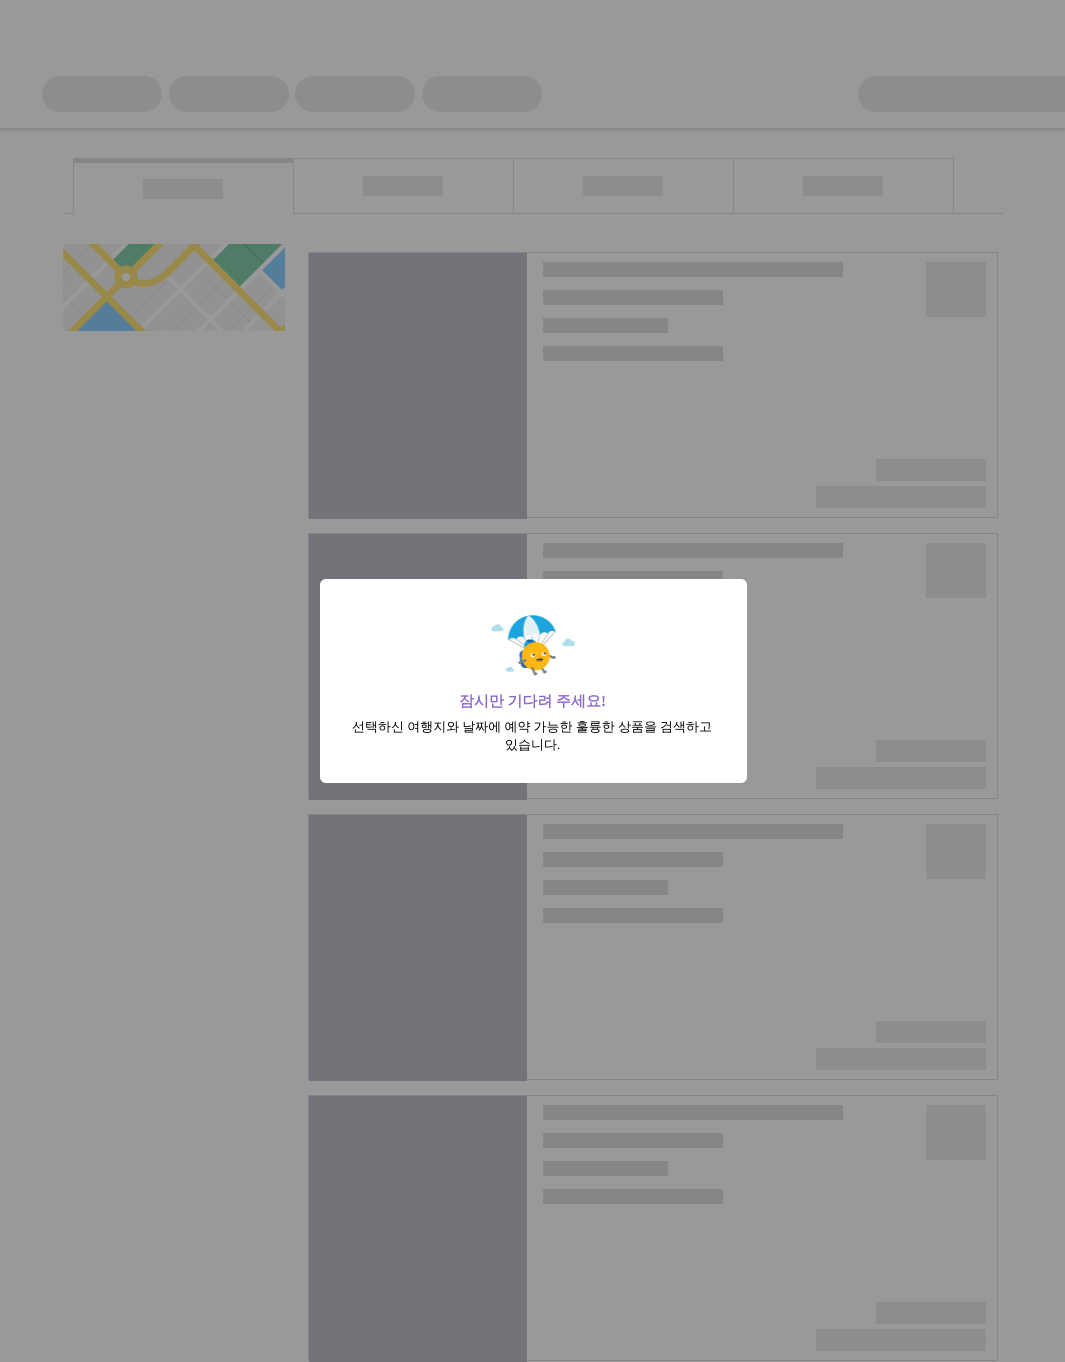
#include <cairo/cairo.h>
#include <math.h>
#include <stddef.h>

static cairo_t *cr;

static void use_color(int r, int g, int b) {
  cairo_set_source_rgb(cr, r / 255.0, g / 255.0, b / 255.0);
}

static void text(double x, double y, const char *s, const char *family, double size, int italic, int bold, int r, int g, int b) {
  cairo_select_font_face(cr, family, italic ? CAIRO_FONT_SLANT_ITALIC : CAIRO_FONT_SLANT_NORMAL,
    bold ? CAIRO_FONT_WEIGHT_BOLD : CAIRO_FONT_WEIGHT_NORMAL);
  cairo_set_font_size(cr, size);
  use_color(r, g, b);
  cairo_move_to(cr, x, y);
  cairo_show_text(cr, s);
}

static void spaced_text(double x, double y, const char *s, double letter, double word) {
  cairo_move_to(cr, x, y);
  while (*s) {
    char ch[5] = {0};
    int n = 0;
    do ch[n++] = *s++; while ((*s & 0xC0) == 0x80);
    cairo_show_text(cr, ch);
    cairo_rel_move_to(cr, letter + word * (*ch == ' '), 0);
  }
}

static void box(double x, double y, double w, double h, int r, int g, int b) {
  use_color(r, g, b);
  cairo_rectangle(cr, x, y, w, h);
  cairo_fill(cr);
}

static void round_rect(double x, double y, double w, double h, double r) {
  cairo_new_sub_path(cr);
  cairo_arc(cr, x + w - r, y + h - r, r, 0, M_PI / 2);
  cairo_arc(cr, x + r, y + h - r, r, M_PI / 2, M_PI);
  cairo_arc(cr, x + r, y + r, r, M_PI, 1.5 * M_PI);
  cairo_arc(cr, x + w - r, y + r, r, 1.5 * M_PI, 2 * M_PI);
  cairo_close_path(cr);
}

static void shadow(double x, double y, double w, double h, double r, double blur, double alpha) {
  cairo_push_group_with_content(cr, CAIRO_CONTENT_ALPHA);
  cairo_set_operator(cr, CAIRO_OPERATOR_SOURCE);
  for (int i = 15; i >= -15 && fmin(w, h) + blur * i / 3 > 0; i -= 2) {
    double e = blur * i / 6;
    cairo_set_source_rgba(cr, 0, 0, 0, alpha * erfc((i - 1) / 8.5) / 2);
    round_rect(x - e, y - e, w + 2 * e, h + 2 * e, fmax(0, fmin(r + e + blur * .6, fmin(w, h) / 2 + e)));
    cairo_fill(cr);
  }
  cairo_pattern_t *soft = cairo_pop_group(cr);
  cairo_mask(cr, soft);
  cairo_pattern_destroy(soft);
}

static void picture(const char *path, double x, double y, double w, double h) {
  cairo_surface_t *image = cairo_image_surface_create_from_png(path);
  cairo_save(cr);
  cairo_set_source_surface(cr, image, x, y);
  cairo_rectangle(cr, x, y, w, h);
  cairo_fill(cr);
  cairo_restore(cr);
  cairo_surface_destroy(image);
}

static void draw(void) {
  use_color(153, 153, 153);
  cairo_paint(cr);
  cairo_save(cr);
  cairo_rectangle(cr, 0, 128, 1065, 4);
  cairo_clip(cr);
  use_color(0, 0, 0);
  shadow(0, 62, 1065, 68, 0, 2, 0.15);
  cairo_restore(cr);
  use_color(140, 141, 143);
  round_rect(42, 76, 120, 36, 18);
  cairo_fill(cr);
  round_rect(169, 76, 120, 36, 18);
  cairo_fill(cr);
  round_rect(295, 76, 120, 36, 18);
  cairo_fill(cr);
  round_rect(422, 76, 120, 36, 18);
  cairo_fill(cr);
  round_rect(858, 76, 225, 36, 18);
  cairo_fill(cr);
  box(73, 158, 220, 5, 133, 134, 136);
  box(73, 158, 1, 56, 133, 134, 136);
  box(143, 179, 80, 20, 140, 141, 143);
  box(293, 158, 660, 1, 133, 134, 136);
  box(293, 213, 710, 1, 133, 134, 136);
  box(293, 158, 1, 56, 133, 134, 136);
  box(363, 176, 80, 20, 140, 141, 143);
  box(63, 213, 10, 1, 133, 134, 136);
  box(513, 158, 1, 56, 133, 134, 136);
  box(583, 176, 80, 20, 140, 141, 143);
  box(733, 158, 1, 56, 133, 134, 136);
  box(803, 176, 80, 20, 140, 141, 143);
  box(953, 158, 1, 56, 133, 134, 136);
  picture("img_01.png", 63, 244, 222, 87);
  cairo_rectangle(cr, 308.5, 252.5, 689, 265);
  use_color(133, 133, 133);
  cairo_set_line_width(cr, 1);
  cairo_stroke(cr);
  box(309, 253, 218, 266, 114, 116, 121);
  box(543, 262, 300, 15, 133, 134, 136);
  box(543, 290, 180, 15, 133, 134, 136);
  box(543, 318, 125, 15, 133, 134, 136);
  box(543, 346, 180, 15, 133, 134, 136);
  box(926, 262, 60, 55, 140, 141, 143);
  box(876, 459, 110, 22, 140, 141, 143);
  box(816, 486, 170, 22, 140, 141, 143);
  cairo_rectangle(cr, 308.5, 533.5, 689, 265);
  use_color(133, 133, 133);
  cairo_stroke(cr);
  box(309, 534, 218, 266, 114, 116, 121);
  box(543, 543, 300, 15, 133, 134, 136);
  box(543, 571, 180, 8, 133, 134, 136);
  box(926, 543, 60, 55, 140, 141, 143);
  box(876, 740, 110, 22, 140, 141, 143);
  box(816, 767, 170, 22, 140, 141, 143);
  cairo_rectangle(cr, 308.5, 814.5, 689, 265);
  use_color(133, 133, 133);
  cairo_stroke(cr);
  box(309, 815, 218, 266, 114, 116, 121);
  box(543, 824, 300, 15, 133, 134, 136);
  box(543, 852, 180, 15, 133, 134, 136);
  box(543, 880, 125, 15, 133, 134, 136);
  box(543, 908, 180, 15, 133, 134, 136);
  box(926, 824, 60, 55, 140, 141, 143);
  box(876, 1021, 110, 22, 140, 141, 143);
  box(816, 1048, 170, 22, 140, 141, 143);
  cairo_rectangle(cr, 308.5, 1095.5, 689, 265);
  use_color(133, 133, 133);
  cairo_stroke(cr);
  box(309, 1096, 218, 266, 114, 116, 121);
  box(543, 1105, 300, 15, 133, 134, 136);
  box(543, 1133, 180, 15, 133, 134, 136);
  box(543, 1161, 125, 15, 133, 134, 136);
  box(543, 1189, 180, 15, 133, 134, 136);
  box(926, 1105, 60, 55, 140, 141, 143);
  box(876, 1302, 110, 22, 140, 141, 143);
  box(816, 1329, 170, 22, 140, 141, 143);
  use_color(255, 255, 255);
  round_rect(320, 579, 427, 204, 6);
  cairo_fill(cr);
  picture("img_02.png", 490, 615, 86, 61);
  cairo_select_font_face(cr, "WenQuanYi Zen Hei", CAIRO_FONT_SLANT_NORMAL, CAIRO_FONT_WEIGHT_BOLD);
  cairo_set_font_size(cr, 15);
  use_color(142, 106, 203);
  spaced_text(459, 706, "잠시만 기다려 주세요", 0, -1);
  text(601, 706, "!", "Liberation Serif", 15, 0, 1, 142, 106, 203);
  cairo_select_font_face(cr, "WenQuanYi Zen Hei Medium", CAIRO_FONT_SLANT_NORMAL, CAIRO_FONT_WEIGHT_NORMAL);
  cairo_set_font_size(cr, 13);
  use_color(0, 0, 0);
  spaced_text(352, 731, "선택하신 여행지와 날짜에 예약 가능한 훌륭한 상품을 검색하고", 0, -0.75);
  text(505, 749, "있습니다", "WenQuanYi Zen Hei Medium", 13, 0, 0, 0, 0, 0);
  text(557, 749, ".", "Liberation Serif", 13, 0, 0, 0, 0, 0);
}

int main(void) {
  cairo_surface_t *surface = cairo_image_surface_create(CAIRO_FORMAT_RGB24, 1065, 1362);
  cr = cairo_create(surface);
  cairo_font_options_t *options = cairo_font_options_create();
  cairo_font_options_set_hint_metrics(options, CAIRO_HINT_METRICS_OFF);
  cairo_font_options_set_hint_style(options, CAIRO_HINT_STYLE_NONE);
  cairo_set_font_options(cr, options);
  cairo_set_miter_limit(cr, 4);
  draw();
  cairo_surface_write_to_png(surface, "out.png");
  cairo_font_options_destroy(options);
  cairo_destroy(cr);
  cairo_surface_destroy(surface);
  return 0;
}
